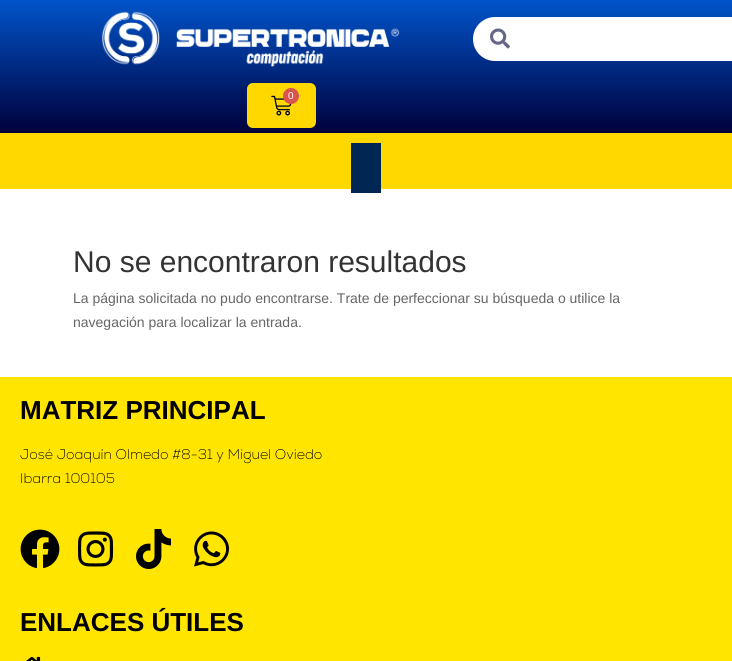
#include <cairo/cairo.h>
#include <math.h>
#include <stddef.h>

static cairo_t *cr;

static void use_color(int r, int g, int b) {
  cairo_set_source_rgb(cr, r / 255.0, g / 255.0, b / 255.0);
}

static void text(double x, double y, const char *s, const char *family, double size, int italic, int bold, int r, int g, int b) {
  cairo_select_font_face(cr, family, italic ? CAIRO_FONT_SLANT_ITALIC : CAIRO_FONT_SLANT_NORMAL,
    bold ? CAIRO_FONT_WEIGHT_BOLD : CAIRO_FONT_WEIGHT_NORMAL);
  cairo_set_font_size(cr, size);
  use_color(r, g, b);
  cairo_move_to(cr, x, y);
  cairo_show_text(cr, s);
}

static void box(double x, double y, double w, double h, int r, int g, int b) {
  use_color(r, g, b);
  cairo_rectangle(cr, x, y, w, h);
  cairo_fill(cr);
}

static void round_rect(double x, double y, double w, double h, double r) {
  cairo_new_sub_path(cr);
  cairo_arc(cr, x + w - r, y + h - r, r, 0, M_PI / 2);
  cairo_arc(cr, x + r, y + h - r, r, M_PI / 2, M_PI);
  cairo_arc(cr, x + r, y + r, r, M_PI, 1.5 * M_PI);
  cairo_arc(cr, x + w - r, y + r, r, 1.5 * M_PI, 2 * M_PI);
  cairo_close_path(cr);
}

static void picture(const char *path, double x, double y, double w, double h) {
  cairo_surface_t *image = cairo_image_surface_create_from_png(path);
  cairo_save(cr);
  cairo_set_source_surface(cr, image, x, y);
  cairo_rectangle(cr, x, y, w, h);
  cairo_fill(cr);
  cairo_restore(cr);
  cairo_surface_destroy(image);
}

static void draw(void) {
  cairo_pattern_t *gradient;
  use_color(255, 255, 255);
  cairo_paint(cr);
  gradient = cairo_pattern_create_linear(366, 0, 366, 133);
  cairo_pattern_add_color_stop_rgba(gradient, 0, 0, 0.329, 0.792, 1);
  cairo_pattern_add_color_stop_rgba(gradient, 1, 0, 0, 0.231, 1);
  cairo_set_source(cr, gradient);
  cairo_pattern_destroy(gradient);
  cairo_rectangle(cr, 0, 0, 732, 133);
  cairo_fill(cr);
  picture("img_01.png", 101, 11, 299, 56);
  use_color(255, 255, 255);
  round_rect(474, 18, 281, 42, 21);
  cairo_fill_preserve(cr);
  cairo_stroke(cr);
  picture("img_02.png", 490, 28, 20, 21);
  use_color(255, 216, 0);
  round_rect(247, 83, 69, 45, 6);
  cairo_fill(cr);
  picture("img_03.png", 271, 95, 21, 21);
  use_color(217, 83, 79);
  cairo_arc(cr, 291, 96, 8, 0, 2 * M_PI);
  cairo_fill(cr);
  box(0, 133, 732, 56, 255, 216, 0);
  box(351, 143, 30, 50, 0, 38, 84);
  box(0, 377, 732, 284, 255, 229, 0);
  picture("img_04.png", 20, 529, 40, 40);
  picture("img_05.png", 78, 531, 36, 36);
  picture("img_06.png", 136, 529, 35, 40);
  picture("img_07.png", 194, 531, 35, 36);
  picture("img_08.png", 26, 656, 15, 5);
  text(288, 99, "0", "Liberation Sans", 10, 0, 0, 255, 255, 255);
  text(73, 272, "No se encontraron resultados", "Liberation Sans", 30, 0, 0, 51, 51, 51);
  text(73, 303, "La página solicitada no pudo encontrarse. Trate de perfeccionar su búsqueda o utilice la", "Liberation Sans", 14, 0, 0, 102, 102, 102);
  text(73, 327, "navegación para localizar la entrada.", "Liberation Sans", 14, 0, 0, 102, 102, 102);
  text(20, 419, "MATRIZ PRINCIPAL", "Liberation Sans", 26, 0, 1, 0, 0, 0);
  text(20, 459, "José Joaquín Olmedo #8-31 y Miguel Oviedo", "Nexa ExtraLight", 14, 0, 0, 0, 0, 0);
  text(20, 483, "Ibarra 100105", "Nexa ExtraLight", 14, 0, 0, 0, 0, 0);
  text(20, 631, "ENLACES ÚTILES", "Liberation Sans", 26, 0, 1, 0, 0, 0);
}

int main(void) {
  cairo_surface_t *surface = cairo_image_surface_create(CAIRO_FORMAT_RGB24, 732, 661);
  cr = cairo_create(surface);
  cairo_font_options_t *options = cairo_font_options_create();
  cairo_font_options_set_hint_metrics(options, CAIRO_HINT_METRICS_OFF);
  cairo_font_options_set_hint_style(options, CAIRO_HINT_STYLE_NONE);
  cairo_set_font_options(cr, options);
  cairo_set_miter_limit(cr, 4);
  draw();
  cairo_surface_write_to_png(surface, "out.png");
  cairo_font_options_destroy(options);
  cairo_destroy(cr);
  cairo_surface_destroy(surface);
  return 0;
}
